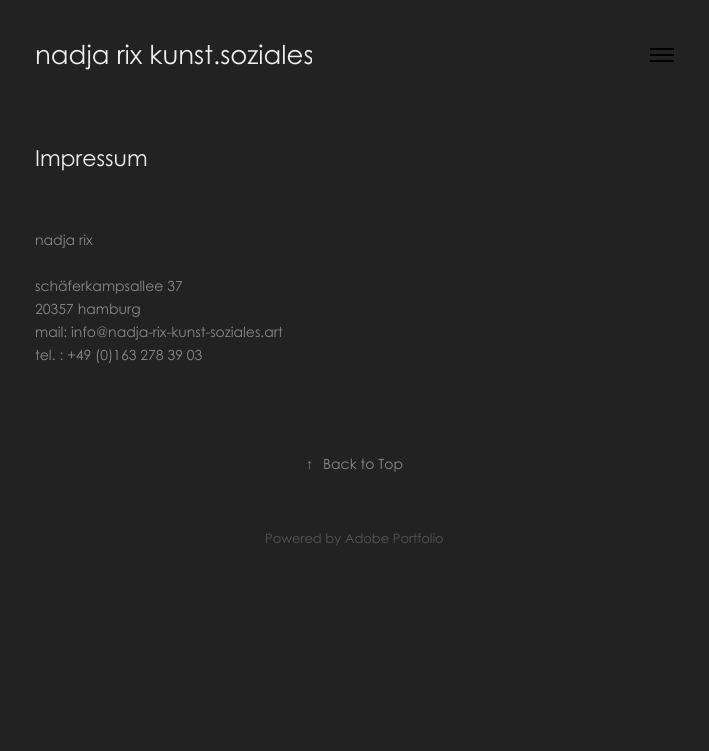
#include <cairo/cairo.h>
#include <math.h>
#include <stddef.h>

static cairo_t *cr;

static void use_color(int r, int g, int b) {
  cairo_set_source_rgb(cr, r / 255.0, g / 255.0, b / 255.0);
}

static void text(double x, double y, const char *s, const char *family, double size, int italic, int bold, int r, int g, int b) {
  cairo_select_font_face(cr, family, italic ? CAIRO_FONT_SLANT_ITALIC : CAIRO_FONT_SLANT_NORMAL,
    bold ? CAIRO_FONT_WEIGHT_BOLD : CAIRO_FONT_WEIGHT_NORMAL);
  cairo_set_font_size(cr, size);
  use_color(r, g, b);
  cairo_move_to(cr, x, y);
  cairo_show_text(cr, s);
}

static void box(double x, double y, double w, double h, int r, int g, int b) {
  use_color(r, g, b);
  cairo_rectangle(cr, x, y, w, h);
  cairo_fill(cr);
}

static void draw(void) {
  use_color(34, 34, 34);
  cairo_paint(cr);
  box(650, 48, 24, 2, 0, 0, 0);
  box(650, 54, 24, 2, 0, 0, 0);
  box(650, 60, 24, 2, 0, 0, 0);
  text(35, 64, "nadja rix kunst.soziales", "Century Gothic", 26, 0, 0, 238, 238, 238);
  text(35, 166, "Impressum", "Century Gothic", 22, 0, 0, 238, 238, 238);
  text(35, 245, "nadja rix", "Century Gothic", 14, 0, 0, 136, 136, 136);
  text(35, 291, "schäferkampsallee 37", "Century Gothic", 14, 0, 0, 136, 136, 136);
  text(35, 314, "20357 hamburg", "Century Gothic", 14, 0, 0, 136, 136, 136);
  text(35, 337, "mail: info@nadja-rix-kunst-soziales.art", "Century Gothic", 14, 0, 0, 136, 136, 136);
  text(35, 360, "tel. : +49 (0)163 278 39 03", "Century Gothic", 14, 0, 0, 136, 136, 136);
  text(306, 469, "↑", "Liberation Serif", 14, 0, 0, 136, 136, 136);
  text(323, 469, "Back to Top", "Century Gothic", 14, 0, 0, 136, 136, 136);
  text(265, 543, "Powered by Adobe Portfolio", "Century Gothic", 13, 0, 0, 85, 85, 85);
}

int main(void) {
  cairo_surface_t *surface = cairo_image_surface_create(CAIRO_FORMAT_RGB24, 709, 751);
  cr = cairo_create(surface);
  cairo_font_options_t *options = cairo_font_options_create();
  cairo_font_options_set_hint_metrics(options, CAIRO_HINT_METRICS_OFF);
  cairo_font_options_set_hint_style(options, CAIRO_HINT_STYLE_NONE);
  cairo_set_font_options(cr, options);
  cairo_set_miter_limit(cr, 4);
  draw();
  cairo_surface_write_to_png(surface, "out.png");
  cairo_font_options_destroy(options);
  cairo_destroy(cr);
  cairo_surface_destroy(surface);
  return 0;
}
